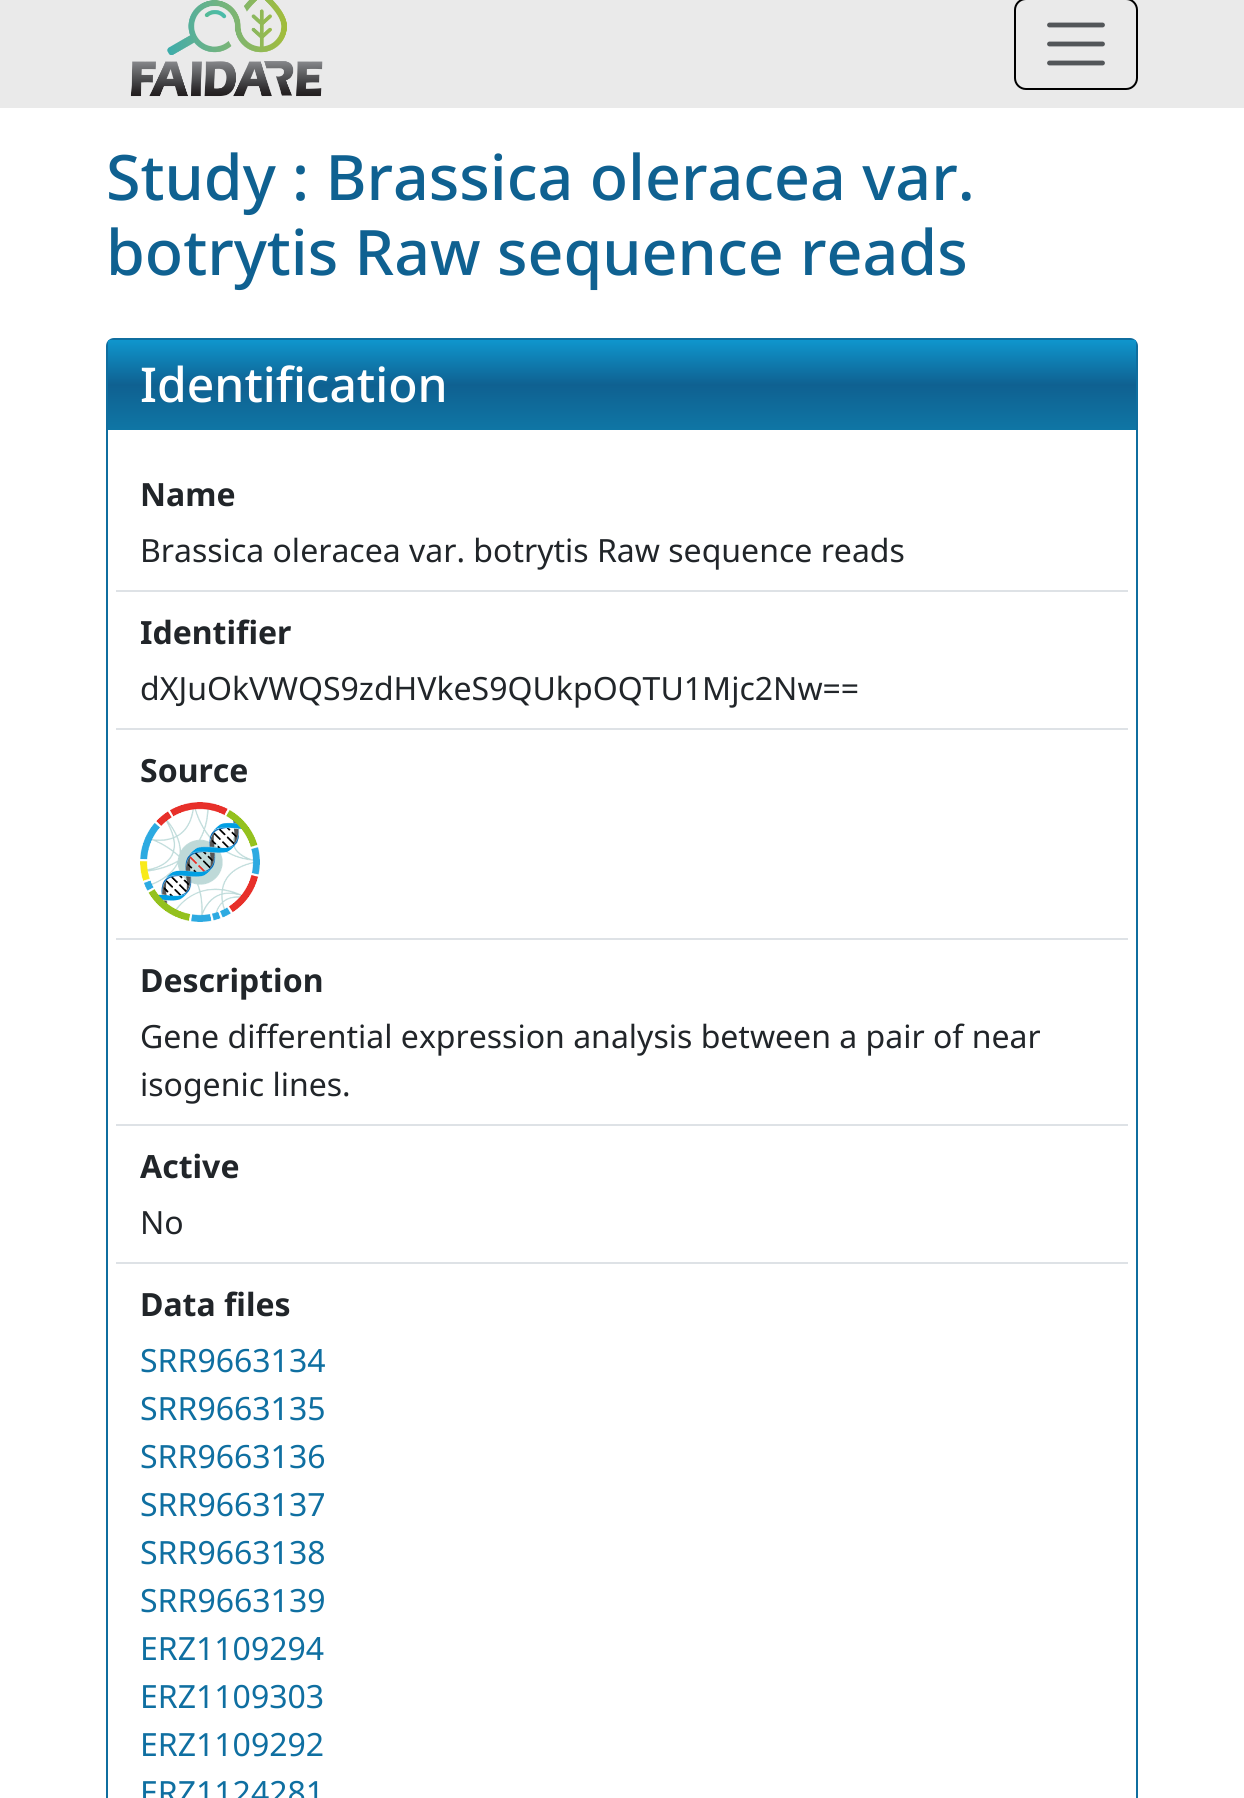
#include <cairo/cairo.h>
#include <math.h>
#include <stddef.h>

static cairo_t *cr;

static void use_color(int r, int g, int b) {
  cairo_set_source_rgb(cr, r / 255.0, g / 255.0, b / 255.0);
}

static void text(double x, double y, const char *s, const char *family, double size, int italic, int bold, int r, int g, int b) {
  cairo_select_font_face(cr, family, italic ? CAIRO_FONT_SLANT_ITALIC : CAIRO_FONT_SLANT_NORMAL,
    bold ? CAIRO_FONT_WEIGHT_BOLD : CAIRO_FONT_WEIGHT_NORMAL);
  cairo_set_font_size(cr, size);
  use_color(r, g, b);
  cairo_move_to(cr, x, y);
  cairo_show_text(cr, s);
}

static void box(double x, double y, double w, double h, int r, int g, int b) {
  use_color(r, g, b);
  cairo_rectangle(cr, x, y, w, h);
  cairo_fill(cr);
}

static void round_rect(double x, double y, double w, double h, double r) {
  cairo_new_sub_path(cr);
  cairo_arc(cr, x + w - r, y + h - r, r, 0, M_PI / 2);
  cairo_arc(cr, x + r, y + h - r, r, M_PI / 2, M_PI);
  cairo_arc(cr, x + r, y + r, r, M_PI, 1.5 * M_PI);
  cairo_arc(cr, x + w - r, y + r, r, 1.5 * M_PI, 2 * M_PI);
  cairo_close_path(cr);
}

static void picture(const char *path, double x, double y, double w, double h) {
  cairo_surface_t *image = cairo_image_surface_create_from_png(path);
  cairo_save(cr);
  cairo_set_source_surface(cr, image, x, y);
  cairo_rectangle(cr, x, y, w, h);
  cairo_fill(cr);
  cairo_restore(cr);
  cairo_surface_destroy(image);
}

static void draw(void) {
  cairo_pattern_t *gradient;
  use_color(255, 255, 255);
  cairo_paint(cr);
  box(0, 0, 1244, 108, 234, 234, 234);
  picture("img_01.png", 130, 0, 193, 97);
  round_rect(1015, -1, 122, 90, 11);
  use_color(0, 0, 0);
  cairo_stroke(cr);
  cairo_new_path(cr);
  cairo_move_to(cr, 1049.5, 25);
  cairo_line_to(cr, 1102.5, 25);
  cairo_move_to(cr, 1049.5, 44);
  cairo_line_to(cr, 1102.5, 44);
  cairo_move_to(cr, 1049.5, 63);
  cairo_line_to(cr, 1102.5, 63);
  use_color(83, 86, 89);
  cairo_set_line_width(cr, 4.8);
  cairo_set_line_cap(cr, CAIRO_LINE_CAP_ROUND);
  cairo_stroke(cr);
  round_rect(107, 339, 1030, 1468, 7);
  use_color(15, 110, 159);
  cairo_set_line_width(cr, 2);
  cairo_set_line_cap(cr, CAIRO_LINE_CAP_BUTT);
  cairo_stroke(cr);
  gradient = cairo_pattern_create_linear(622, 340, 622, 430);
  cairo_pattern_add_color_stop_rgba(gradient, 0, 0.059, 0.588, 0.804, 1);
  cairo_pattern_add_color_stop_rgba(gradient, 0.5, 0.059, 0.38, 0.569, 1);
  cairo_pattern_add_color_stop_rgba(gradient, 1, 0.059, 0.463, 0.647, 1);
  cairo_set_source(cr, gradient);
  cairo_pattern_destroy(gradient);
  cairo_rectangle(cr, 108, 340, 1028, 90);
  cairo_fill(cr);
  box(116, 590, 1012, 2, 222, 226, 230);
  box(116, 728, 1012, 2, 222, 226, 230);
  picture("img_02.png", 140, 802, 120, 120);
  box(116, 938, 1012, 2, 222, 226, 230);
  box(116, 1124, 1012, 2, 222, 226, 230);
  box(116, 1262, 1012, 2, 222, 226, 230);
  text(106, 200, "Study : Brassica oleracea var.", "Noto Sans Medium", 62.7, 0, 0, 15, 97, 145);
  text(106, 275, "botrytis Raw sequence reads", "Noto Sans Medium", 62.7, 0, 0, 15, 97, 145);
  text(140, 402, "Identification", "Noto Sans Medium", 48, 0, 0, 255, 255, 255);
  text(140, 506, "Name", "Noto Sans", 32, 0, 1, 33, 37, 41);
  text(140, 562, "Brassica oleracea var. botrytis Raw sequence reads", "Noto Sans", 32, 0, 0, 33, 37, 41);
  text(140, 644, "Identifier", "Noto Sans", 32, 0, 1, 33, 37, 41);
  text(140, 700, "dXJuOkVWQS9zdHVkeS9QUkpOQTU1Mjc2Nw==", "Noto Sans", 32, 0, 0, 33, 37, 41);
  text(140, 782, "Source", "Noto Sans", 32, 0, 1, 33, 37, 41);
  text(140, 992, "Description", "Noto Sans", 32, 0, 1, 33, 37, 41);
  text(140, 1048, "Gene differential expression analysis between a pair of near", "Noto Sans", 32, 0, 0, 33, 37, 41);
  text(140, 1096, "isogenic lines.", "Noto Sans", 32, 0, 0, 33, 37, 41);
  text(140, 1178, "Active", "Noto Sans", 32, 0, 1, 33, 37, 41);
  text(140, 1234, "No", "Noto Sans", 32, 0, 0, 33, 37, 41);
  text(140, 1316, "Data files", "Noto Sans", 32, 0, 1, 33, 37, 41);
  text(140, 1372, "SRR9663134", "Noto Sans", 32, 0, 0, 15, 111, 161);
  text(140, 1420, "SRR9663135", "Noto Sans", 32, 0, 0, 15, 111, 161);
  text(140, 1468, "SRR9663136", "Noto Sans", 32, 0, 0, 15, 111, 161);
  text(140, 1516, "SRR9663137", "Noto Sans", 32, 0, 0, 15, 111, 161);
  text(140, 1564, "SRR9663138", "Noto Sans", 32, 0, 0, 15, 111, 161);
  text(140, 1612, "SRR9663139", "Noto Sans", 32, 0, 0, 15, 111, 161);
  text(140, 1660, "ERZ1109294", "Noto Sans", 32, 0, 0, 15, 111, 161);
  text(140, 1708, "ERZ1109303", "Noto Sans", 32, 0, 0, 15, 111, 161);
  text(140, 1756, "ERZ1109292", "Noto Sans", 32, 0, 0, 15, 111, 161);
  text(140, 1804, "ERZ1124281", "Noto Sans", 32, 0, 0, 15, 111, 161);
}

int main(void) {
  cairo_surface_t *surface = cairo_image_surface_create(CAIRO_FORMAT_RGB24, 1244, 1798);
  cr = cairo_create(surface);
  cairo_font_options_t *options = cairo_font_options_create();
  cairo_font_options_set_hint_metrics(options, CAIRO_HINT_METRICS_OFF);
  cairo_font_options_set_hint_style(options, CAIRO_HINT_STYLE_NONE);
  cairo_set_font_options(cr, options);
  cairo_set_miter_limit(cr, 4);
  draw();
  cairo_surface_write_to_png(surface, "out.png");
  cairo_font_options_destroy(options);
  cairo_destroy(cr);
  cairo_surface_destroy(surface);
  return 0;
}
